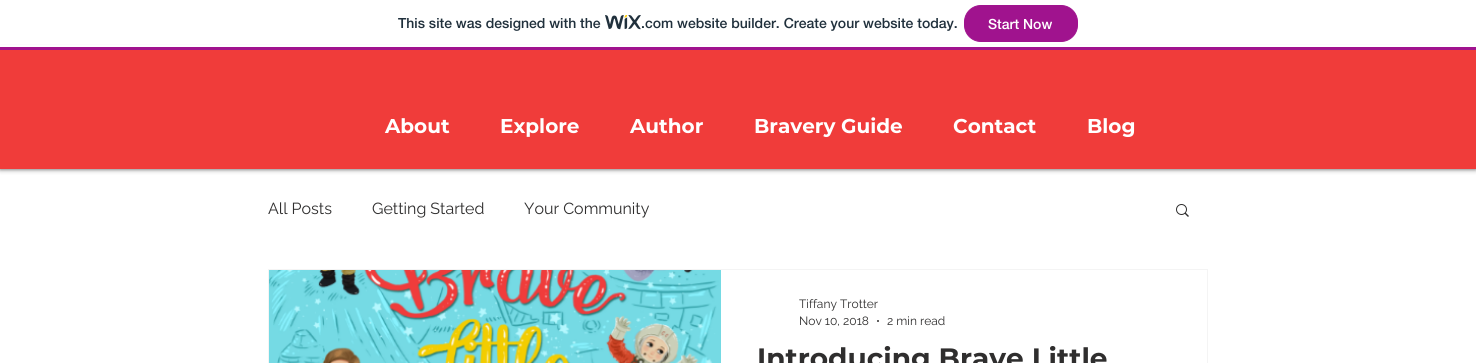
#include <cairo/cairo.h>
#include <math.h>
#include <stddef.h>

static cairo_t *cr;

static void use_color(int r, int g, int b) {
  cairo_set_source_rgb(cr, r / 255.0, g / 255.0, b / 255.0);
}

static void text(double x, double y, const char *s, const char *family, double size, int italic, int bold, int r, int g, int b) {
  cairo_select_font_face(cr, family, italic ? CAIRO_FONT_SLANT_ITALIC : CAIRO_FONT_SLANT_NORMAL,
    bold ? CAIRO_FONT_WEIGHT_BOLD : CAIRO_FONT_WEIGHT_NORMAL);
  cairo_set_font_size(cr, size);
  use_color(r, g, b);
  cairo_move_to(cr, x, y);
  cairo_show_text(cr, s);
}

static void box(double x, double y, double w, double h, int r, int g, int b) {
  use_color(r, g, b);
  cairo_rectangle(cr, x, y, w, h);
  cairo_fill(cr);
}

static void round_rect(double x, double y, double w, double h, double r) {
  cairo_new_sub_path(cr);
  cairo_arc(cr, x + w - r, y + h - r, r, 0, M_PI / 2);
  cairo_arc(cr, x + r, y + h - r, r, M_PI / 2, M_PI);
  cairo_arc(cr, x + r, y + r, r, M_PI, 1.5 * M_PI);
  cairo_arc(cr, x + w - r, y + r, r, 1.5 * M_PI, 2 * M_PI);
  cairo_close_path(cr);
}

static void shadow(double x, double y, double w, double h, double r, double blur, double alpha) {
  cairo_push_group_with_content(cr, CAIRO_CONTENT_ALPHA);
  cairo_set_operator(cr, CAIRO_OPERATOR_SOURCE);
  for (int i = 15; i >= -15 && fmin(w, h) + blur * i / 3 > 0; i -= 2) {
    double e = blur * i / 6;
    cairo_set_source_rgba(cr, 0, 0, 0, alpha * erfc((i - 1) / 8.5) / 2);
    round_rect(x - e, y - e, w + 2 * e, h + 2 * e, fmax(0, fmin(r + e + blur * .6, fmin(w, h) / 2 + e)));
    cairo_fill(cr);
  }
  cairo_pattern_t *soft = cairo_pop_group(cr);
  cairo_mask(cr, soft);
  cairo_pattern_destroy(soft);
}

static void picture(const char *path, double x, double y, double w, double h) {
  cairo_surface_t *image = cairo_image_surface_create_from_png(path);
  cairo_save(cr);
  cairo_set_source_surface(cr, image, x, y);
  cairo_rectangle(cr, x, y, w, h);
  cairo_fill(cr);
  cairo_restore(cr);
  cairo_surface_destroy(image);
}

static void draw(void) {
  use_color(255, 255, 255);
  cairo_paint(cr);
  use_color(0, 0, 0);
  shadow(0, 50, 1476, 119, 0, 2.5, 0.7);
  box(0, 45, 1476, 2, 255, 255, 255);
  box(0, 47, 1476, 3, 160, 19, 142);
  picture("img_01.png", 605, 15, 36, 15);
  round_rect(964.5, 5.5, 113, 36, 16.5);
  cairo_fill_preserve(cr);
  cairo_set_line_width(cr, 1);
  cairo_stroke(cr);
  box(0, 50, 1476, 119, 240, 60, 58);
  picture("img_02.png", 1176, 204, 13, 13);
  cairo_rectangle(cr, 268.5, 269.5, 939, 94);
  use_color(244, 244, 244);
  cairo_stroke(cr);
  picture("img_03.png", 269, 270, 452, 93);
  use_color(47, 46, 46);
  cairo_arc(cr, 878, 321, 1, 0, 2 * M_PI);
  cairo_fill(cr);
  text(398, 28, "This site was designed with the", "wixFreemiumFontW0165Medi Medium", 14, 0, 0, 32, 48, 60);
  text(641, 28, ".com website builder. Create your website today.", "wixFreemiumFontW0165Medi Medium", 14, 0, 0, 32, 48, 60);
  text(988, 29, "Start Now", "wixFreemiumFontW0165Medi Medium", 14, 0, 0, 255, 255, 255);
  text(385, 133, "About", "Montserrat", 20, 0, 1, 255, 255, 255);
  text(500, 133, "Explore", "Montserrat", 20, 0, 1, 255, 255, 255);
  text(630, 133, "Author", "Montserrat", 20, 0, 1, 255, 255, 255);
  text(754, 133, "Bravery Guide", "Montserrat", 20, 0, 1, 255, 255, 255);
  text(953, 133, "Contact", "Montserrat", 20, 0, 1, 255, 255, 255);
  text(1087, 133, "Blog", "Montserrat", 20, 0, 1, 255, 255, 255);
  text(268, 214, "All Posts", "Raleway", 16, 0, 0, 47, 46, 46);
  text(372, 214, "Getting Started", "Raleway", 16, 0, 0, 47, 46, 46);
  text(524, 214, "Your Community", "Raleway", 16, 0, 0, 47, 46, 46);
  text(799, 308, "Tiffany Trotter", "Raleway", 12, 0, 0, 47, 46, 46);
  text(799, 325, "Nov 10, 2018", "Raleway", 12, 0, 0, 47, 46, 46);
  text(887, 325, "2 min read", "Raleway", 12, 0, 0, 47, 46, 46);
  text(757, 368, "Introducing Brave Little", "Montserrat", 28, 0, 1, 47, 46, 46);
}

int main(void) {
  cairo_surface_t *surface = cairo_image_surface_create(CAIRO_FORMAT_RGB24, 1476, 363);
  cr = cairo_create(surface);
  cairo_font_options_t *options = cairo_font_options_create();
  cairo_font_options_set_hint_metrics(options, CAIRO_HINT_METRICS_OFF);
  cairo_font_options_set_hint_style(options, CAIRO_HINT_STYLE_NONE);
  cairo_set_font_options(cr, options);
  cairo_set_miter_limit(cr, 4);
  draw();
  cairo_surface_write_to_png(surface, "out.png");
  cairo_font_options_destroy(options);
  cairo_destroy(cr);
  cairo_surface_destroy(surface);
  return 0;
}
